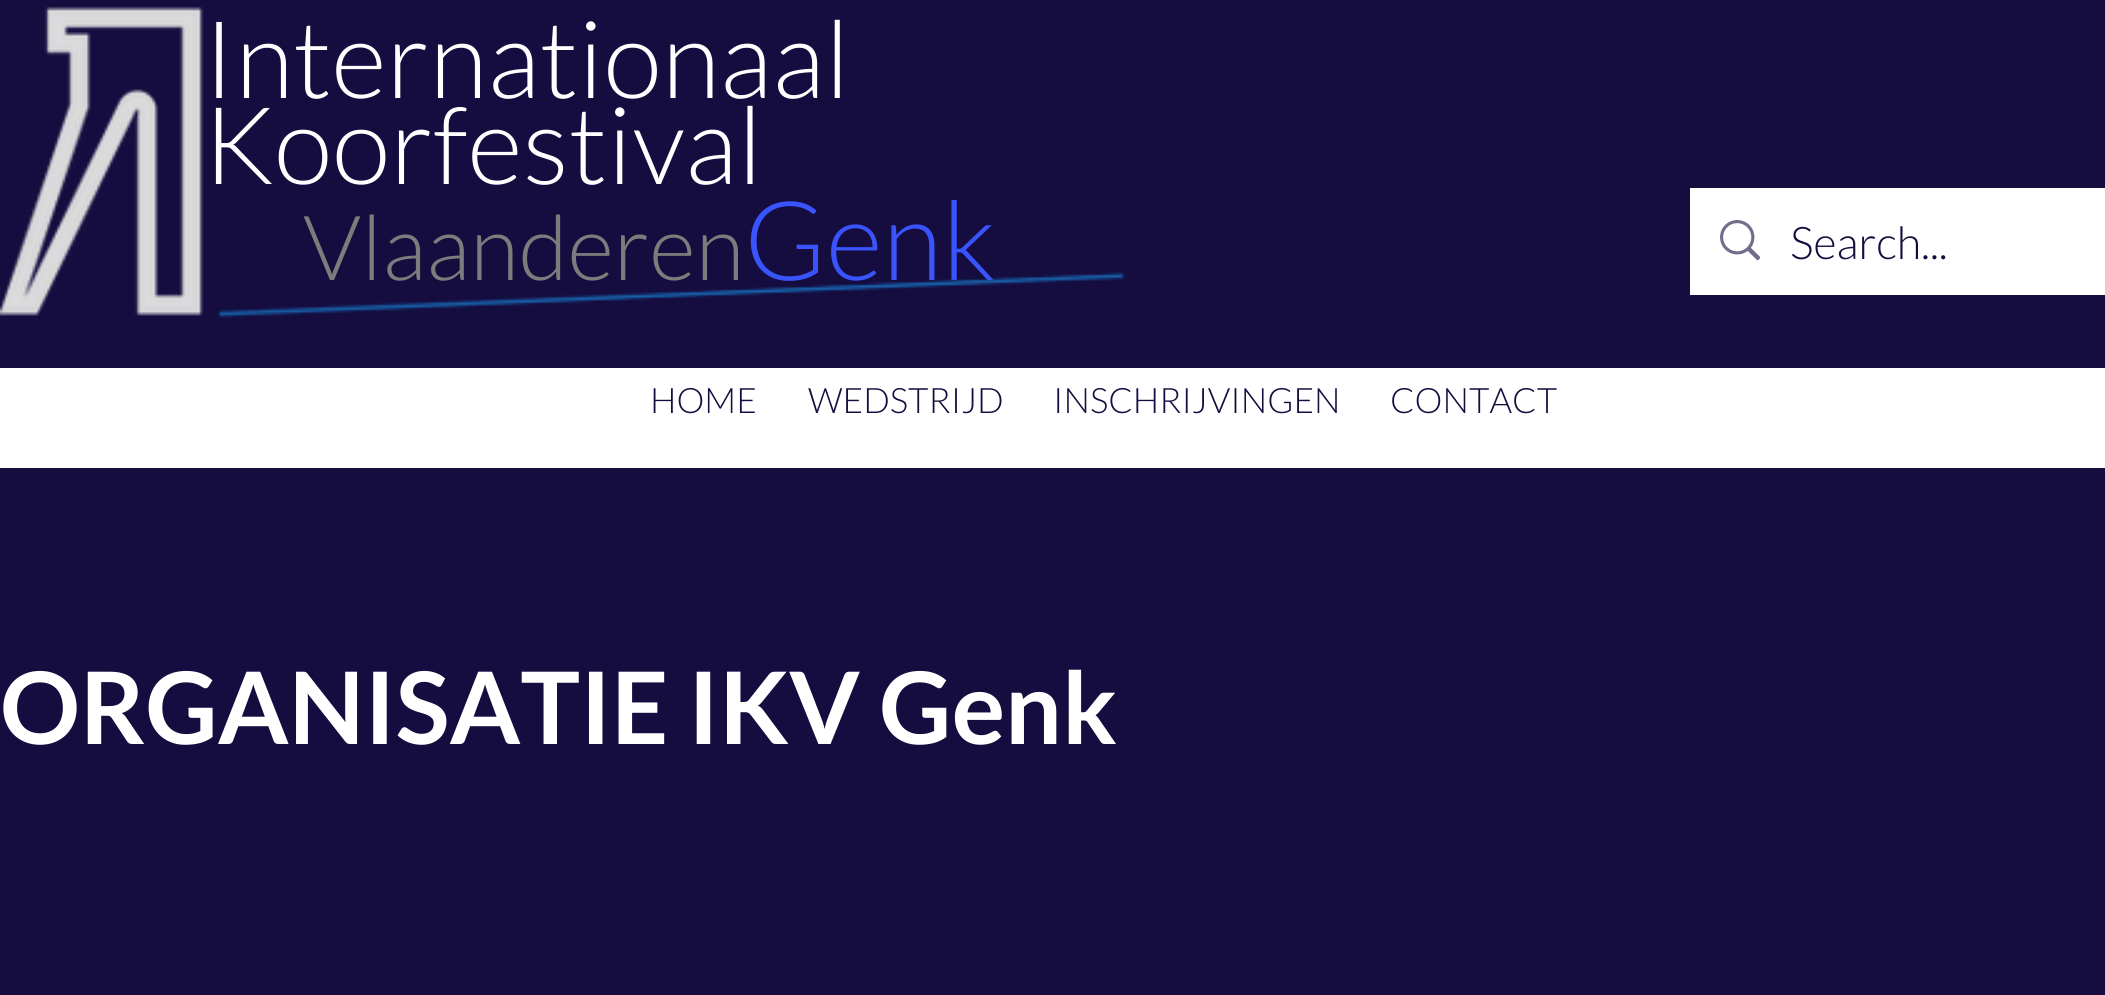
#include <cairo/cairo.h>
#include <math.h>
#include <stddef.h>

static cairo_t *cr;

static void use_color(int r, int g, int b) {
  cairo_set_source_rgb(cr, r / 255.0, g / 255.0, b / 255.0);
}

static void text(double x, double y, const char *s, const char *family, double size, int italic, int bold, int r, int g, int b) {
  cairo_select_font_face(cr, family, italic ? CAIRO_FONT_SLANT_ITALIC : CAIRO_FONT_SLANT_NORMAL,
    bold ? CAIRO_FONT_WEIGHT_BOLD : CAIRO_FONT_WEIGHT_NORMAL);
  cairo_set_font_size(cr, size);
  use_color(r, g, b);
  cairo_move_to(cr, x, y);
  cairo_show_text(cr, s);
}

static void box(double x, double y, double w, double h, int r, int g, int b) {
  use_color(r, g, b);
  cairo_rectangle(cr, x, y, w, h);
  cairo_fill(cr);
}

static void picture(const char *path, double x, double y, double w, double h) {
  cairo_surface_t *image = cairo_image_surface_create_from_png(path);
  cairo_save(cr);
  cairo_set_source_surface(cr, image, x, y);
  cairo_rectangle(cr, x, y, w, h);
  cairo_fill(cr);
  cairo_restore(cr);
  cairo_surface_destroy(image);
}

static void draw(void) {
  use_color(21, 12, 63);
  cairo_paint(cr);
  box(1690, 188, 415, 107, 255, 255, 255);
  picture("img_02.png", 1720, 220, 40, 41);
  box(0, 368, 2105, 100, 255, 255, 255);
  text(203, 98, "Internationaal", "Lato Light", 107.5, 0, 0, 255, 255, 255);
  text(203, 184, "Koorfestival", "Lato Light", 107.5, 0, 0, 255, 255, 255);
  text(303, 280, "Vlaanderen", "Lato Light", 90, 0, 0, 124, 124, 124);
  text(744, 280, "Genk", "Lato Light", 110, 0, 0, 58, 84, 253);
  picture("img_01.png", 0, 6, 1126, 313);
  text(1790, 259, "Search...", "Lato Light", 45, 0, 0, 21, 12, 63);
  text(650, 413, "HOME", "Lato Light", 35, 0, 0, 21, 12, 63);
  text(808, 413, "WEDSTRIJD", "Lato Light", 35, 0, 0, 21, 12, 63);
  text(1053, 413, "INSCHRIJVINGEN", "Lato Light", 35, 0, 0, 21, 12, 63);
  text(1390, 413, "CONTACT", "Lato Light", 35, 0, 0, 21, 12, 63);
  text(0, 744, "ORGANISATIE IKV Genk", "Lato", 100, 0, 1, 255, 255, 255);
}

int main(void) {
  cairo_surface_t *surface = cairo_image_surface_create(CAIRO_FORMAT_RGB24, 2105, 995);
  cr = cairo_create(surface);
  cairo_font_options_t *options = cairo_font_options_create();
  cairo_font_options_set_hint_metrics(options, CAIRO_HINT_METRICS_OFF);
  cairo_font_options_set_hint_style(options, CAIRO_HINT_STYLE_NONE);
  cairo_set_font_options(cr, options);
  cairo_set_miter_limit(cr, 4);
  draw();
  cairo_surface_write_to_png(surface, "out.png");
  cairo_font_options_destroy(options);
  cairo_destroy(cr);
  cairo_surface_destroy(surface);
  return 0;
}
